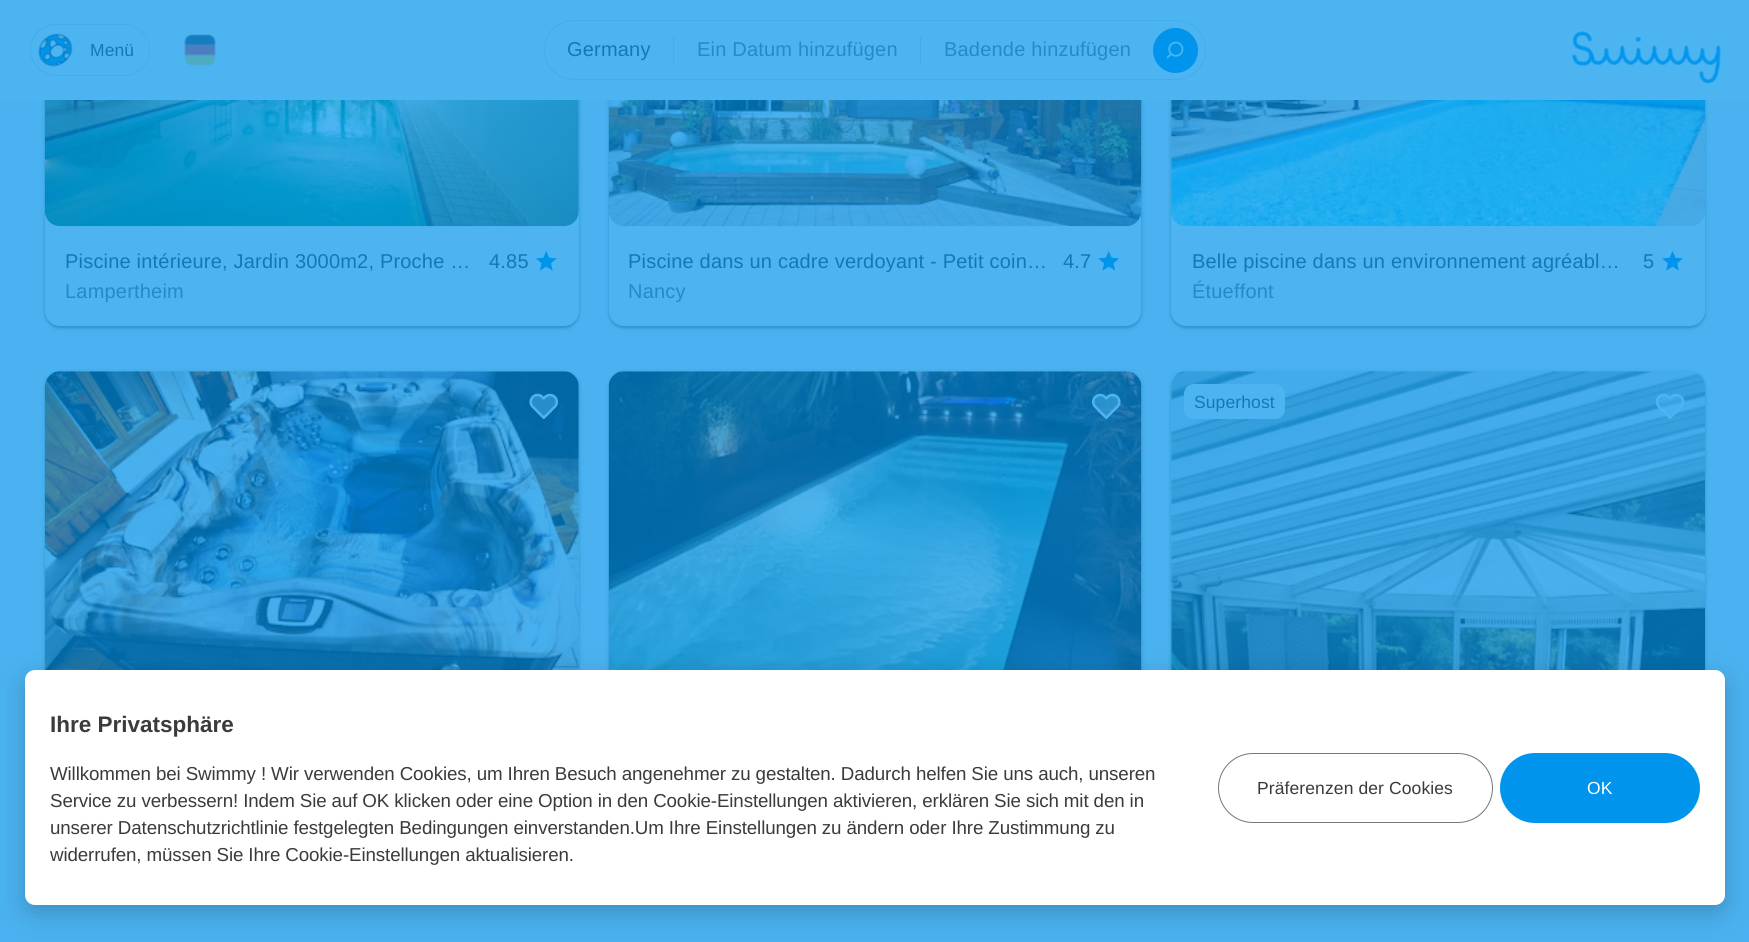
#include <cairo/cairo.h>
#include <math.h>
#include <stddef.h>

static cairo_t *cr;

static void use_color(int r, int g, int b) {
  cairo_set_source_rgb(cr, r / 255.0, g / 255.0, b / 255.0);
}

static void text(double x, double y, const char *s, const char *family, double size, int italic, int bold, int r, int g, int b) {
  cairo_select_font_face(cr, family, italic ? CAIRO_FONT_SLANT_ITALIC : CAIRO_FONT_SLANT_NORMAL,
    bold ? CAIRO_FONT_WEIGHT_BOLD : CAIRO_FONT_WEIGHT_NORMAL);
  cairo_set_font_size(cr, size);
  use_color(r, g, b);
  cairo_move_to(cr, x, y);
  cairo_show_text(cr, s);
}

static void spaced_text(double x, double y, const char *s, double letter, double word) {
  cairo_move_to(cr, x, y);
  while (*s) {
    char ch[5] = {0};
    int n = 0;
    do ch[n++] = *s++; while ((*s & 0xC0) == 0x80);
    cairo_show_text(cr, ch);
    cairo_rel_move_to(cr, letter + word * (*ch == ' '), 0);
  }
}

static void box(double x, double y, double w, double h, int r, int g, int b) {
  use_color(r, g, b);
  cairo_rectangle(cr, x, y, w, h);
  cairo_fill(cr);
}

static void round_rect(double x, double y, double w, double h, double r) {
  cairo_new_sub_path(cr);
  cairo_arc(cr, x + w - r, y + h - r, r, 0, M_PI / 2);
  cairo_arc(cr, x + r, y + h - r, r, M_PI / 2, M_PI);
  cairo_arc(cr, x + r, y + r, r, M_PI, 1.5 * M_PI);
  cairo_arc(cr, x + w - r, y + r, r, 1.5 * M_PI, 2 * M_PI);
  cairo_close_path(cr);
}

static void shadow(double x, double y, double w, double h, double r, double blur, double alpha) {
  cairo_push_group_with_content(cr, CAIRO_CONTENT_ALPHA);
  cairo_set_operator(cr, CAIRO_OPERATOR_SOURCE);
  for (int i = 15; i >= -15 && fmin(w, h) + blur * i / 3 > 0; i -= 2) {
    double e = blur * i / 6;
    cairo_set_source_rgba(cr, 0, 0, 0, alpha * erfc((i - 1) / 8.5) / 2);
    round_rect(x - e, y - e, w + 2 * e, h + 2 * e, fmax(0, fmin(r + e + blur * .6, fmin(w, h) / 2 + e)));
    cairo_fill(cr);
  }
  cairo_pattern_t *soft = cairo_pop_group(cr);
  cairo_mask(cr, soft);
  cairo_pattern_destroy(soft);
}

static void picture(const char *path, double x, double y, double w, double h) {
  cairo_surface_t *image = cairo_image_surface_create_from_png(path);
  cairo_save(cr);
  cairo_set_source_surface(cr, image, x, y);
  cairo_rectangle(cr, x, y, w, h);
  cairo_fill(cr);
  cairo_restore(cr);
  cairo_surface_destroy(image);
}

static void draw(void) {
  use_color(74, 178, 240);
  cairo_paint(cr);
  use_color(0, 104, 165);
  shadow(44, -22, 536, 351, 16, 2, 0.15);
  shadow(45, -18, 534, 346, 15, 1, 0.3);
  use_color(77, 179, 241);
  round_rect(45, -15, 534, 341, 15);
  cairo_fill(cr);
  use_color(68, 172, 234);
  round_rect(45, -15, 534, 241, 15);
  cairo_fill(cr);
  use_color(0, 104, 165);
  shadow(608, -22, 535, 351, 16, 2, 0.15);
  shadow(609, -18, 532, 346, 15, 1, 0.3);
  use_color(77, 179, 241);
  round_rect(609, -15, 532, 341, 15);
  cairo_fill(cr);
  use_color(0, 104, 165);
  shadow(1170, -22, 536, 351, 16, 2, 0.15);
  shadow(1171, -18, 534, 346, 15, 1, 0.3);
  use_color(77, 179, 241);
  round_rect(1171, -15, 534, 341, 15);
  cairo_fill(cr);
  use_color(68, 172, 234);
  round_rect(1171, -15, 534, 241, 15);
  cairo_fill(cr);
  box(0, 0, 1749, 100, 77, 180, 242);
  round_rect(30.5, 24.5, 119, 51, 25.5);
  use_color(68, 172, 234);
  cairo_set_line_width(cr, 1);
  cairo_stroke(cr);
  picture("img_01.png", 38, 33, 35, 34);
  picture("img_02.png", 184, 34, 32, 32);
  round_rect(544.5, 20.5, 661, 59, 29.5);
  cairo_stroke(cr);
  box(673, 36, 1, 29, 68, 172, 234);
  box(920, 36, 1, 29, 68, 172, 234);
  use_color(0, 148, 236);
  cairo_arc(cr, 1175.5, 50.5, 22.5, 0, 2 * M_PI);
  cairo_fill(cr);
  picture("img_03.png", 1166, 41, 18, 18);
  picture("img_04.png", 1572, 31, 149, 53);
  picture("img_05.png", 45, 100, 534, 127);
  picture("img_06.png", 536, 251, 21, 20);
  picture("img_07.png", 608, 100, 534, 127);
  picture("img_08.png", 1098, 251, 21, 20);
  picture("img_09.png", 1171, 100, 534, 127);
  picture("img_10.png", 1662, 251, 21, 20);
  use_color(0, 104, 165);
  shadow(44, 371, 536, 458, 16, 2, 0.15);
  shadow(45, 373, 534, 455, 15, 1, 0.3);
  use_color(68, 172, 234);
  round_rect(45, 371, 534, 355, 15);
  cairo_fill(cr);
  picture("img_11.png", 45, 371, 534, 299);
  picture("img_12.png", 529, 393, 30, 26);
  use_color(0, 104, 165);
  shadow(608, 371, 535, 458, 16, 2, 0.15);
  shadow(609, 373, 532, 455, 15, 1, 0.3);
  use_color(68, 172, 234);
  round_rect(609, 371, 532, 355, 15);
  cairo_fill(cr);
  picture("img_13.png", 608, 371, 534, 299);
  picture("img_14.png", 1091, 393, 30, 26);
  use_color(0, 104, 165);
  shadow(1170, 371, 536, 458, 16, 2, 0.15);
  shadow(1171, 373, 534, 455, 15, 1, 0.3);
  use_color(68, 172, 234);
  round_rect(1171, 371, 534, 355, 15);
  cairo_fill(cr);
  picture("img_15.png", 1171, 371, 534, 299);
  use_color(77, 180, 242);
  round_rect(1184, 384, 101, 35, 10);
  cairo_fill(cr);
  picture("img_16.png", 1655, 393, 30, 26);
  use_color(0, 0, 0);
  shadow(25, 678, 1700, 235, 10, 12.5, 0.2);
  use_color(255, 255, 255);
  round_rect(25, 670, 1700, 235, 10);
  cairo_fill(cr);
  round_rect(1218.5, 753.5, 274, 69, 34.5);
  use_color(118, 118, 118);
  cairo_stroke(cr);
  use_color(0, 148, 236);
  round_rect(1500, 753, 200, 70, 35);
  cairo_fill(cr);
  cairo_select_font_face(cr, "Liberation Sans", CAIRO_FONT_SLANT_NORMAL, CAIRO_FONT_WEIGHT_NORMAL);
  cairo_set_font_size(cr, 17.5);
  use_color(18, 121, 183);
  spaced_text(90, 56, "Menü", 0.1, 0);
  cairo_set_font_size(cr, 20);
  spaced_text(567, 56, "Germany", 0.2, 0);
  use_color(35, 139, 201);
  spaced_text(697, 56, "Ein Datum hinzufügen", 0.2, 0);
  spaced_text(944, 56, "Badende hinzufügen", 0.2, 0);
  use_color(18, 121, 183);
  spaced_text(65, 268, "Piscine intérieure, Jardin 3000m2, Proche …", 0.2, 0);
  spaced_text(489, 268, "4.85", 0.2, 0);
  use_color(35, 139, 201);
  spaced_text(65, 298, "Lampertheim", 0.2, 0);
  use_color(18, 121, 183);
  spaced_text(628, 268, "Piscine dans un cadre verdoyant - Petit coin…", 0.2, 0);
  spaced_text(1063, 268, "4.7", 0.2, 0);
  use_color(35, 139, 201);
  spaced_text(628, 298, "Nancy", 0.2, 0);
  use_color(18, 121, 183);
  spaced_text(1192, 268, "Belle piscine dans un environnement agréabl…", 0.2, 0);
  spaced_text(1643, 268, "5", 0.2, 0);
  use_color(35, 139, 201);
  spaced_text(1192, 298, "Étueffont", 0.2, 0);
  cairo_set_font_size(cr, 17.5);
  use_color(18, 121, 183);
  spaced_text(1194, 408, "Superhost", 0.1, 0);
  text(50, 732, "Ihre Privatsphäre", "Liberation Sans", 22.5, 0, 1, 59, 59, 59);
  cairo_select_font_face(cr, "Liberation Sans", CAIRO_FONT_SLANT_NORMAL, CAIRO_FONT_WEIGHT_NORMAL);
  cairo_set_font_size(cr, 18.75);
  spaced_text(50, 780, "Willkommen bei Swimmy ! Wir verwenden Cookies, um Ihren Besuch angenehmer zu gestalten. Dadurch helfen Sie uns auch, unseren", -0.12, 0);
  spaced_text(50, 807, "Service zu verbessern! Indem Sie auf OK klicken oder eine Option in den Cookie-Einstellungen aktivieren, erklären Sie sich mit den in", -0.12, 0);
  spaced_text(50, 834, "unserer Datenschutzrichtlinie festgelegten Bedingungen einverstanden.Um Ihre Einstellungen zu ändern oder Ihre Zustimmung zu", -0.12, 0);
  spaced_text(50, 861, "widerrufen, müssen Sie Ihre Cookie-Einstellungen aktualisieren.", -0.12, 0);
  cairo_set_font_size(cr, 17.5);
  spaced_text(1257, 794, "Präferenzen der Cookies", 0.1, 0);
  use_color(255, 255, 255);
  spaced_text(1587, 794, "OK", 0.1, 0);
}

int main(void) {
  cairo_surface_t *surface = cairo_image_surface_create(CAIRO_FORMAT_RGB24, 1749, 942);
  cr = cairo_create(surface);
  cairo_font_options_t *options = cairo_font_options_create();
  cairo_font_options_set_hint_metrics(options, CAIRO_HINT_METRICS_OFF);
  cairo_font_options_set_hint_style(options, CAIRO_HINT_STYLE_NONE);
  cairo_set_font_options(cr, options);
  cairo_set_miter_limit(cr, 4);
  draw();
  cairo_surface_write_to_png(surface, "out.png");
  cairo_font_options_destroy(options);
  cairo_destroy(cr);
  cairo_surface_destroy(surface);
  return 0;
}
